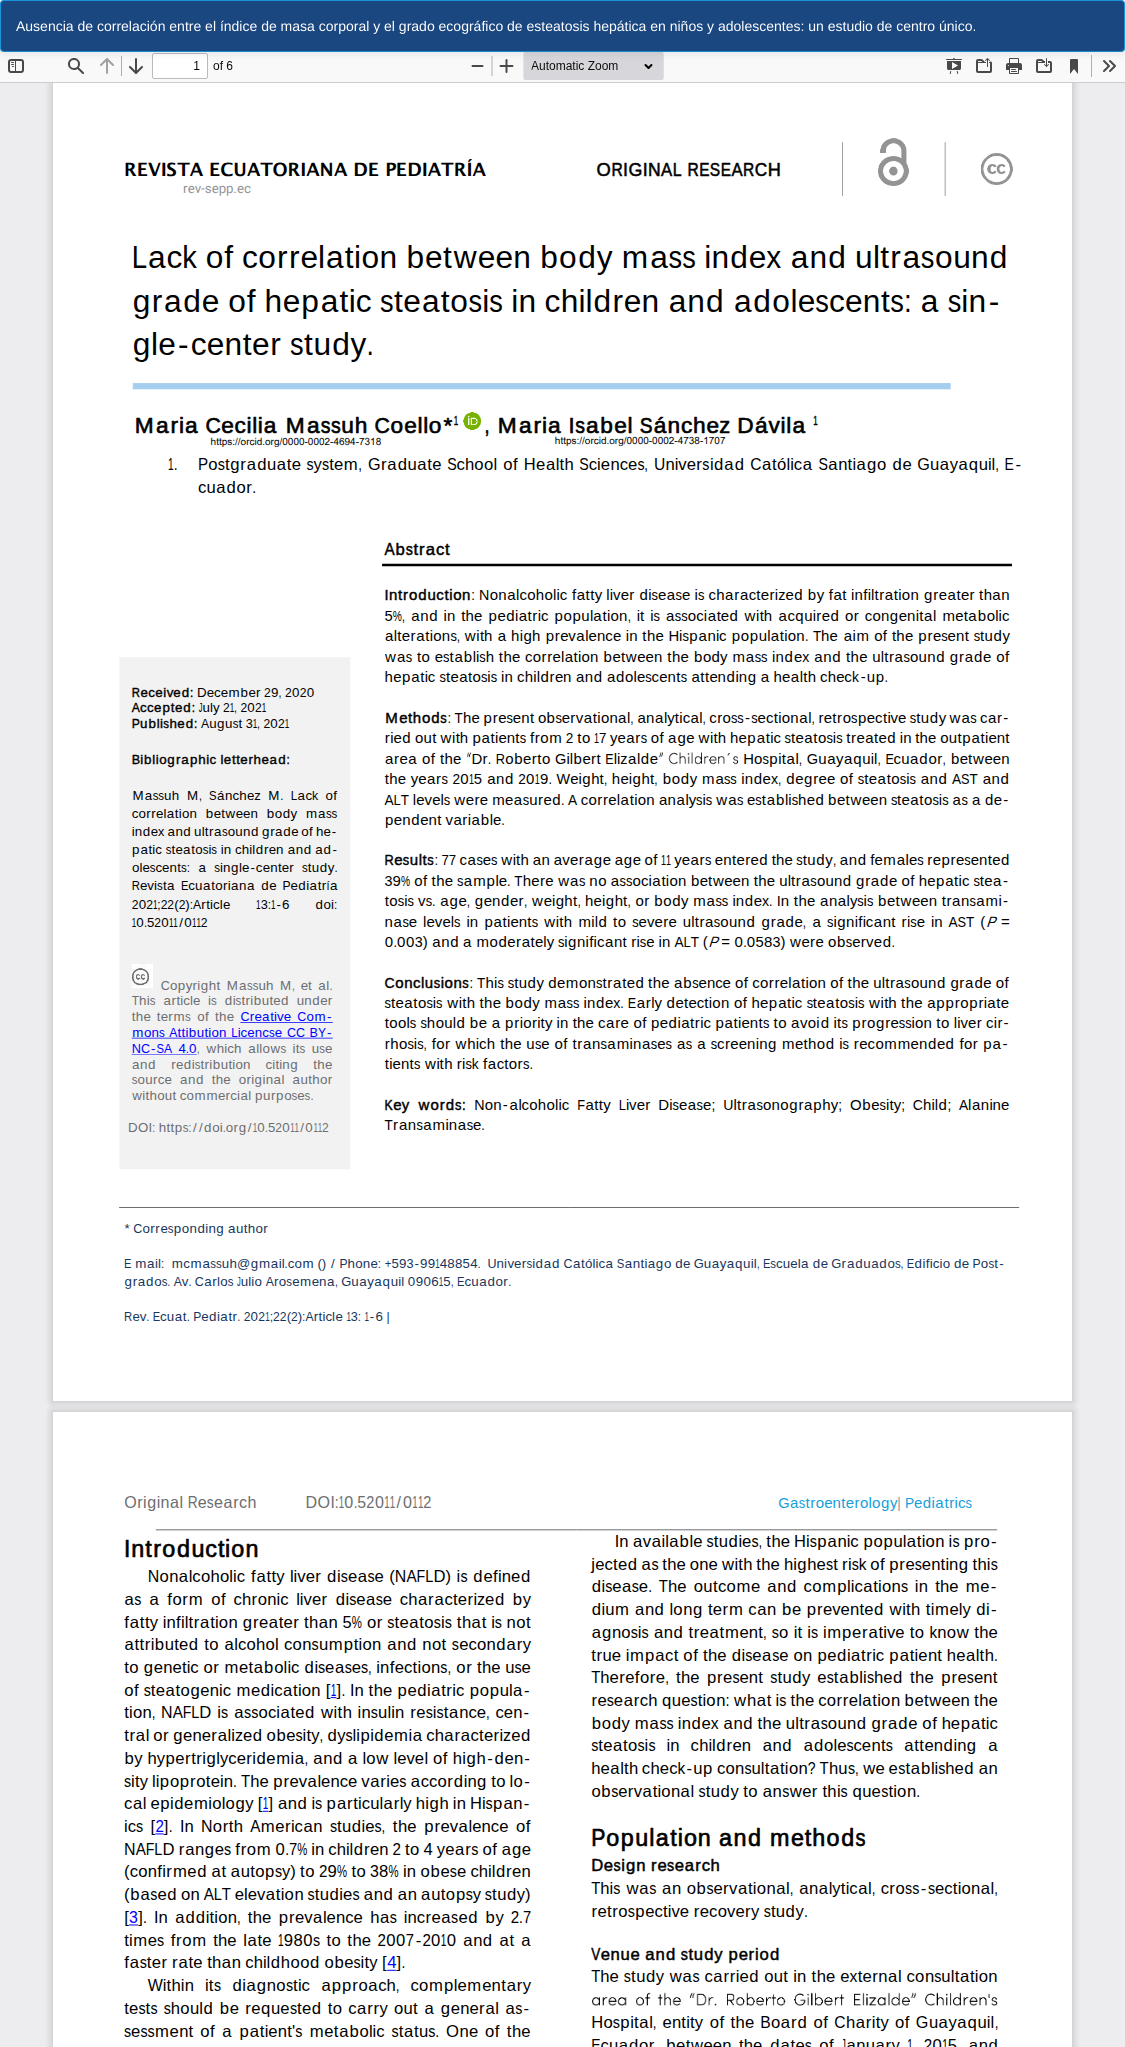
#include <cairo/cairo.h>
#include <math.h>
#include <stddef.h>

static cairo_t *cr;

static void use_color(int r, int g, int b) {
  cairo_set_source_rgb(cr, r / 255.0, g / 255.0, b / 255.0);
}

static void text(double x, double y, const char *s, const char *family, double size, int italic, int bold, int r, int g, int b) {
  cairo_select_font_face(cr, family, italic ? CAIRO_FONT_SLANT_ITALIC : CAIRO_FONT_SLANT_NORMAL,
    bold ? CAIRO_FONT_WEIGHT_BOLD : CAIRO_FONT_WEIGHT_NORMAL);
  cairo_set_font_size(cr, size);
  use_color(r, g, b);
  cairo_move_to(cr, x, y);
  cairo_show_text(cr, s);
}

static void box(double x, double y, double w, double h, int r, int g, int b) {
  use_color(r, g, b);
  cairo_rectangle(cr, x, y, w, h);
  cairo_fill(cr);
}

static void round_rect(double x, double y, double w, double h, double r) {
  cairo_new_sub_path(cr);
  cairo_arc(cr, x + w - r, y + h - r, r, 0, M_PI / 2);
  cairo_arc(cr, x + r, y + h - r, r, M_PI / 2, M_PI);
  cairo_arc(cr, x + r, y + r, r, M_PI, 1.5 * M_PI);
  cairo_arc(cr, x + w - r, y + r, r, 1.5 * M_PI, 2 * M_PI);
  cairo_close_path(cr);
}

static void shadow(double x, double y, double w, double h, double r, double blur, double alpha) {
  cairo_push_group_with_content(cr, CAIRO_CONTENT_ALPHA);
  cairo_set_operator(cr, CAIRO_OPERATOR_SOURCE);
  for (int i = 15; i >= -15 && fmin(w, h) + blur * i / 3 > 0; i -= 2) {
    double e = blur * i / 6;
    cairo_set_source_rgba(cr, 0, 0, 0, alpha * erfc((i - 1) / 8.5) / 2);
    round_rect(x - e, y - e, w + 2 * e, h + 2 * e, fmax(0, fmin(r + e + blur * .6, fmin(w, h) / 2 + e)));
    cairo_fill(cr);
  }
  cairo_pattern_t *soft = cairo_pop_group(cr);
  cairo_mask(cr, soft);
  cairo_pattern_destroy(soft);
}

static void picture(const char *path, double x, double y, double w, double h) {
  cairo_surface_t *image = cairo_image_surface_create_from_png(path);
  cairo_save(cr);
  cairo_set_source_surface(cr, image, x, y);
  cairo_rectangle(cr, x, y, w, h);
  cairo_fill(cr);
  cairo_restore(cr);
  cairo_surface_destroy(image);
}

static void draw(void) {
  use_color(255, 255, 255);
  cairo_paint(cr);
  picture("img_01.png", 0, 50, 1125, 1997);
  use_color(0, 0, 0);
  shadow(0, 1, 1125, 52, 4, 5, 0.1);
  use_color(47, 164, 231);
  round_rect(0, 0, 1125, 52, 4);
  cairo_fill(cr);
  cairo_save(cr);
  round_rect(0, 0, 1125, 52, 4);
  cairo_clip(cr);
  box(1, 1, 1123, 50, 27, 71, 128);
  cairo_restore(cr);
  cairo_new_path(cr);
  cairo_move_to(cr, 1123.5, 50.5);
  cairo_line_to(cr, 1121, 51.5);
  cairo_line_to(cr, 4, 51.5);
  cairo_line_to(cr, 1.5, 50.5);
  use_color(23, 138, 204);
  cairo_set_line_width(cr, 1);
  cairo_stroke(cr);
  cairo_new_path(cr);
  cairo_move_to(cr, 1.5, 50.5);
  cairo_curve_to(cr, 1, 50, 0.5, 49, 0.5, 48);
  cairo_line_to(cr, 0.5, 4);
  cairo_curve_to(cr, 0.5, 3, 1, 2, 1.5, 1.5);
  cairo_curve_to(cr, 2, 1, 3, 0.5, 4, 0.5);
  cairo_line_to(cr, 1121, 0.5);
  cairo_curve_to(cr, 1122, 0.5, 1123, 1, 1123.5, 1.5);
  cairo_curve_to(cr, 1124, 2, 1124.5, 3, 1124.5, 4);
  cairo_line_to(cr, 1124.5, 48);
  cairo_curve_to(cr, 1124.5, 49, 1124, 50, 1123.5, 50.5);
  use_color(25, 149, 220);
  cairo_stroke(cr);
  text(16, 31, "Ausencia de correlación entre el índice de masa corporal y el grado ecográfico de esteatosis hepática en niños y adolescentes: un estudio de centro único.", "Liberation Sans", 14, 0, 0, 255, 255, 255);
}

int main(void) {
  cairo_surface_t *surface = cairo_image_surface_create(CAIRO_FORMAT_RGB24, 1125, 2047);
  cr = cairo_create(surface);
  cairo_font_options_t *options = cairo_font_options_create();
  cairo_font_options_set_hint_metrics(options, CAIRO_HINT_METRICS_OFF);
  cairo_font_options_set_hint_style(options, CAIRO_HINT_STYLE_NONE);
  cairo_set_font_options(cr, options);
  cairo_set_miter_limit(cr, 4);
  draw();
  cairo_surface_write_to_png(surface, "out.png");
  cairo_font_options_destroy(options);
  cairo_destroy(cr);
  cairo_surface_destroy(surface);
  return 0;
}
